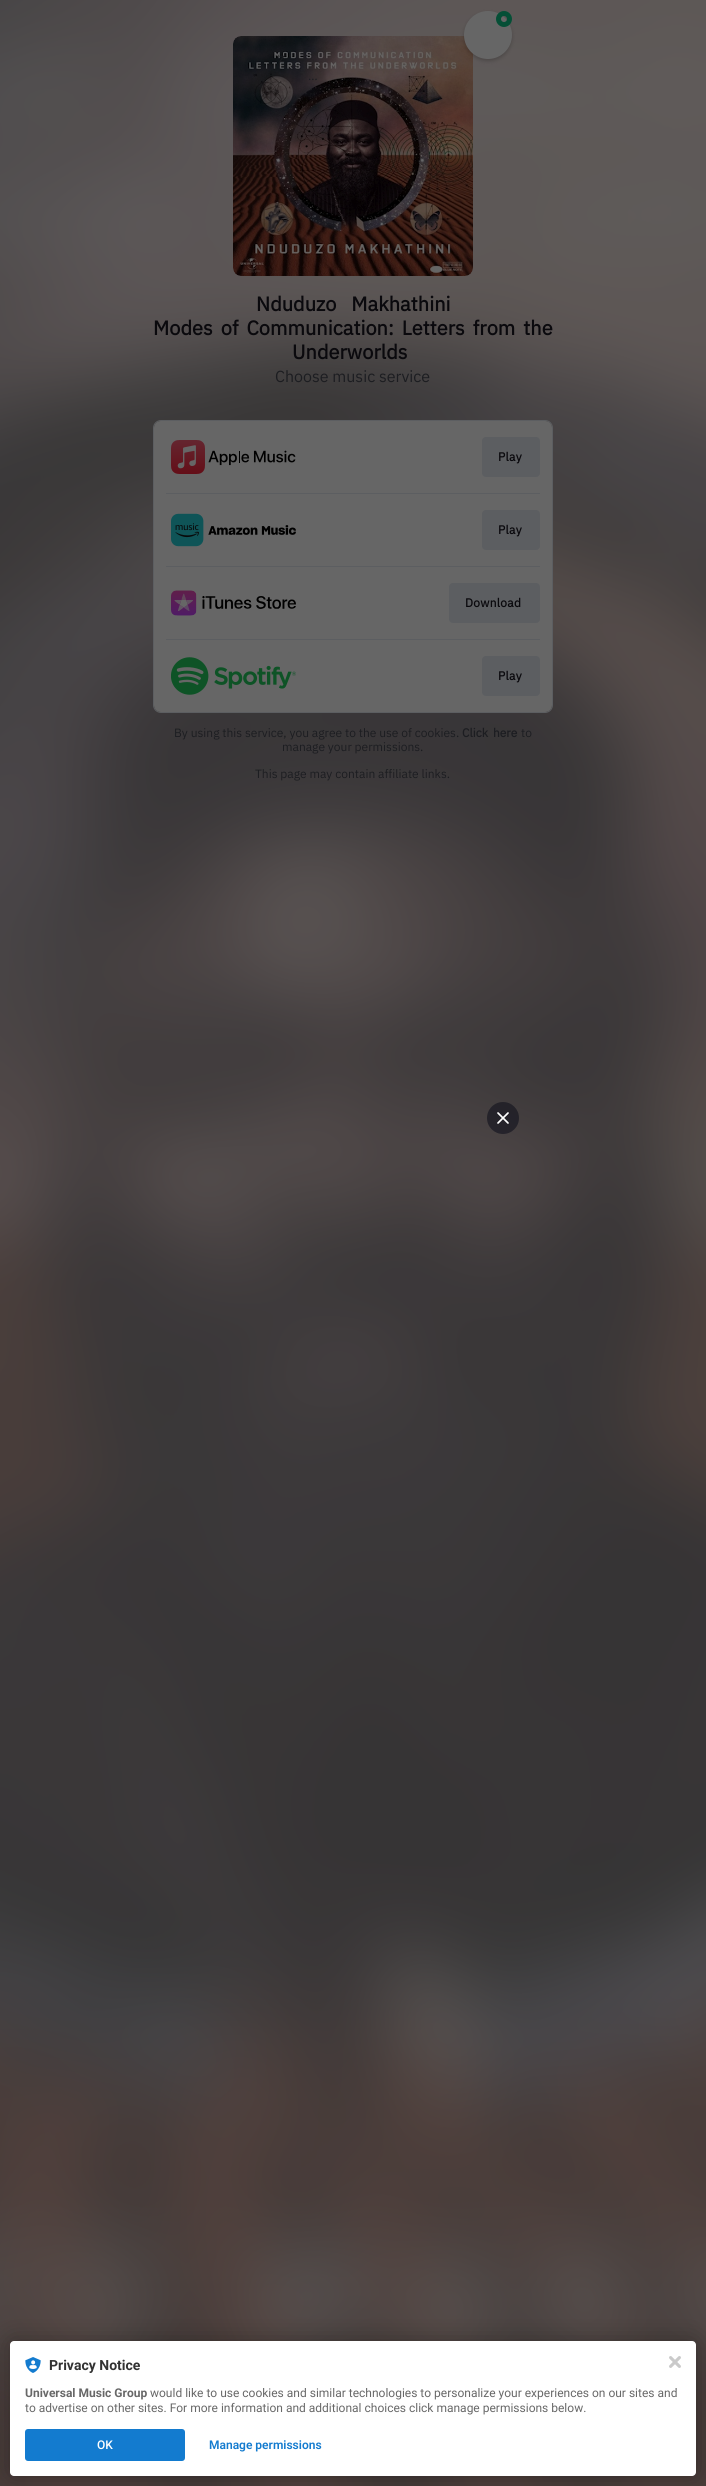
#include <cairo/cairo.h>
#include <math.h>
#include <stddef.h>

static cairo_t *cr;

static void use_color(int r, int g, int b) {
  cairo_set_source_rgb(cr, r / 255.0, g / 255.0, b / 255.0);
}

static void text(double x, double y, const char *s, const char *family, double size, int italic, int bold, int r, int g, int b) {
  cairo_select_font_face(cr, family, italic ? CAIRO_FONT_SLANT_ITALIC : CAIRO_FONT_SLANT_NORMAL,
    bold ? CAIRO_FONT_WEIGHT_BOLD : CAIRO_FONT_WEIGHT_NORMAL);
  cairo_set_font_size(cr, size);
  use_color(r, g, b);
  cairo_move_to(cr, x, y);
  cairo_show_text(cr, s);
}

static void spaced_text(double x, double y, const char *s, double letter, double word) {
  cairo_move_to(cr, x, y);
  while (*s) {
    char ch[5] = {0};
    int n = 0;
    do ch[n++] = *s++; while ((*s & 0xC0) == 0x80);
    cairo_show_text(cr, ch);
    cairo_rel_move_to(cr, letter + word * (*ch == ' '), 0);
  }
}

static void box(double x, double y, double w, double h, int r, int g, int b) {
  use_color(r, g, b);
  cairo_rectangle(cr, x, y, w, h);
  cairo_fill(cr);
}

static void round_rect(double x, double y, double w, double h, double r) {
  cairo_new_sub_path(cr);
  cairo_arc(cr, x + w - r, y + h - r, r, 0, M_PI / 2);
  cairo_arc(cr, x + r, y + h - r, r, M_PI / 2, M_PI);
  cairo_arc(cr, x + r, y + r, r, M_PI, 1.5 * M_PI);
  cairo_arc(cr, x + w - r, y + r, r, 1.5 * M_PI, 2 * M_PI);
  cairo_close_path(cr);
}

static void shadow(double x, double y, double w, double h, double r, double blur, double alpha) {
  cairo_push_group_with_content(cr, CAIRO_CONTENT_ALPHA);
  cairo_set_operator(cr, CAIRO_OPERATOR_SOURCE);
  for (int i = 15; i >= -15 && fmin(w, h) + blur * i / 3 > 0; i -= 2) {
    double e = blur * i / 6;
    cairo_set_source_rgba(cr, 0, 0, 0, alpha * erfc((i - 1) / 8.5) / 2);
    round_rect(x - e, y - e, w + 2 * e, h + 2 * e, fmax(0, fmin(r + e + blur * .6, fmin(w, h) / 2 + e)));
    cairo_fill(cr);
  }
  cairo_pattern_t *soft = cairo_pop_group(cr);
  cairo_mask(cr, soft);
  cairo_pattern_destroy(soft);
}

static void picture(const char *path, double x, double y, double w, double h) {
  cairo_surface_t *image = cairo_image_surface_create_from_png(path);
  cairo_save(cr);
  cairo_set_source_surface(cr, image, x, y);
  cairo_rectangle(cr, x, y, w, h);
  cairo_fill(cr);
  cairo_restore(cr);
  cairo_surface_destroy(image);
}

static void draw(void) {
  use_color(102, 102, 102);
  cairo_paint(cr);
  picture("img_01.png", 0, 0, 706, 2486);
  picture("img_02.png", 233, 36, 240, 240);
  use_color(0, 0, 0);
  shadow(464, 13, 48, 48, 24, 2, 0.2);
  use_color(102, 102, 102);
  cairo_arc(cr, 488, 35, 24, 0, 2 * M_PI);
  cairo_fill(cr);
  cairo_arc(cr, 504, 19, 5.5, 0, 2 * M_PI);
  use_color(5, 79, 54);
  cairo_set_line_width(cr, 5);
  cairo_stroke(cr);
  cairo_set_source_rgba(cr, 0.094, 0.09, 0.129, 0.7);
  cairo_arc(cr, 503, 1118, 16, 0, 2 * M_PI);
  cairo_fill(cr);
  cairo_new_path(cr);
  cairo_move_to(cr, 498, 1113);
  cairo_line_to(cr, 508, 1123);
  cairo_move_to(cr, 498, 1123);
  cairo_line_to(cr, 508, 1113);
  use_color(255, 255, 255);
  cairo_set_line_width(cr, 1.7);
  cairo_set_line_cap(cr, CAIRO_LINE_CAP_ROUND);
  cairo_set_line_join(cr, CAIRO_LINE_JOIN_ROUND);
  cairo_stroke(cr);
  round_rect(153.5, 420.5, 399, 292, 7.5);
  use_color(92, 94, 97);
  cairo_set_line_width(cr, 1);
  cairo_set_line_cap(cr, CAIRO_LINE_CAP_BUTT);
  cairo_set_line_join(cr, CAIRO_LINE_JOIN_MITER);
  cairo_stroke(cr);
  use_color(102, 102, 102);
  round_rect(154, 421, 398, 291, 7);
  cairo_fill(cr);
  picture("img_03.png", 171, 440, 125, 34);
  use_color(92, 94, 97);
  round_rect(482, 437, 58, 40, 4);
  cairo_fill(cr);
  box(166, 493, 374, 1, 92, 94, 97);
  picture("img_04.png", 171, 513, 125, 34);
  round_rect(482, 510, 58, 40, 4);
  cairo_fill(cr);
  box(166, 566, 374, 1, 92, 94, 97);
  picture("img_05.png", 171, 590, 125, 26);
  round_rect(449, 583, 91, 40, 4);
  cairo_fill(cr);
  box(166, 639, 374, 1, 92, 94, 97);
  picture("img_06.png", 171, 657, 125, 38);
  round_rect(482, 656, 58, 40, 4);
  cairo_fill(cr);
  use_color(0, 0, 0);
  shadow(10, 2341, 686, 135, 4, 12, 0.3);
  use_color(255, 255, 255);
  round_rect(10, 2341, 686, 135, 4);
  cairo_fill(cr);
  picture("img_07.png", 669, 2356, 12, 12);
  picture("img_08.png", 25, 2357, 16, 16);
  use_color(19, 123, 207);
  round_rect(25, 2429, 160, 32, 3);
  cairo_fill(cr);
  text(279, 62, "z", "IBM Plex Sans", 12, 0, 0, 28, 29, 33);
  text(308, 80, "…", "IBM Plex Sans", 12, 0, 0, 28, 29, 33);
  cairo_select_font_face(cr, "IBM Plex Sans", CAIRO_FONT_SLANT_NORMAL, CAIRO_FONT_WEIGHT_BOLD);
  cairo_set_font_size(cr, 20);
  use_color(10, 9, 13);
  spaced_text(256, 311, "Nduduzo Makhathini", 0, 10);
  spaced_text(153, 335, "Modes of Communication: Letters from the", 0, 3.25);
  text(292, 359, "Underworlds", "IBM Plex Sans", 20, 0, 1, 10, 9, 13);
  text(275, 382, "Choose music service", "IBM Plex Sans", 16, 0, 0, 28, 29, 33);
  cairo_select_font_face(cr, "IBM Plex Sans", CAIRO_FONT_SLANT_NORMAL, CAIRO_FONT_WEIGHT_BOLD);
  cairo_set_font_size(cr, 12);
  use_color(10, 9, 13);
  spaced_text(498, 461, "Play", 0.25, 0);
  spaced_text(498, 534, "Play", 0.25, 0);
  spaced_text(465, 607, "Download", 0.25, 0);
  spaced_text(498, 680, "Play", 0.25, 0);
  text(174, 737, "By using this service, you agree to the use of cookies.", "IBM Plex Sans", 12, 0, 0, 28, 29, 33);
  cairo_select_font_face(cr, "IBM Plex Sans", CAIRO_FONT_SLANT_NORMAL, CAIRO_FONT_WEIGHT_BOLD);
  spaced_text(462, 737, "Click here", 0, 2);
  text(521, 737, "to", "IBM Plex Sans", 12, 0, 0, 28, 29, 33);
  text(282, 751, "manage your permissions.", "IBM Plex Sans", 12, 0, 0, 28, 29, 33);
  text(255, 778, "This page may contain affiliate links.", "IBM Plex Sans", 12, 0, 0, 28, 29, 33);
  text(49, 2370, "Privacy Notice", "Roboto", 14, 0, 1, 50, 50, 50);
  text(25, 2397, "Universal Music Group", "Roboto", 12, 0, 1, 104, 104, 104);
  text(150, 2397, "would like to use cookies and similar technologies to personalize your experiences on our sites and", "Roboto", 12, 0, 0, 104, 104, 104);
  text(25, 2412, "to advertise on other sites. For more information and additional choices click manage permissions below.", "Roboto", 12, 0, 0, 104, 104, 104);
  text(97, 2449, "OK", "Roboto Medium", 12, 0, 0, 255, 255, 255);
  text(209, 2449, "Manage permissions", "Roboto SemiBold", 12, 0, 0, 19, 123, 207);
}

int main(void) {
  cairo_surface_t *surface = cairo_image_surface_create(CAIRO_FORMAT_RGB24, 706, 2486);
  cr = cairo_create(surface);
  cairo_font_options_t *options = cairo_font_options_create();
  cairo_font_options_set_hint_metrics(options, CAIRO_HINT_METRICS_OFF);
  cairo_font_options_set_hint_style(options, CAIRO_HINT_STYLE_NONE);
  cairo_set_font_options(cr, options);
  cairo_set_miter_limit(cr, 4);
  draw();
  cairo_surface_write_to_png(surface, "out.png");
  cairo_font_options_destroy(options);
  cairo_destroy(cr);
  cairo_surface_destroy(surface);
  return 0;
}
